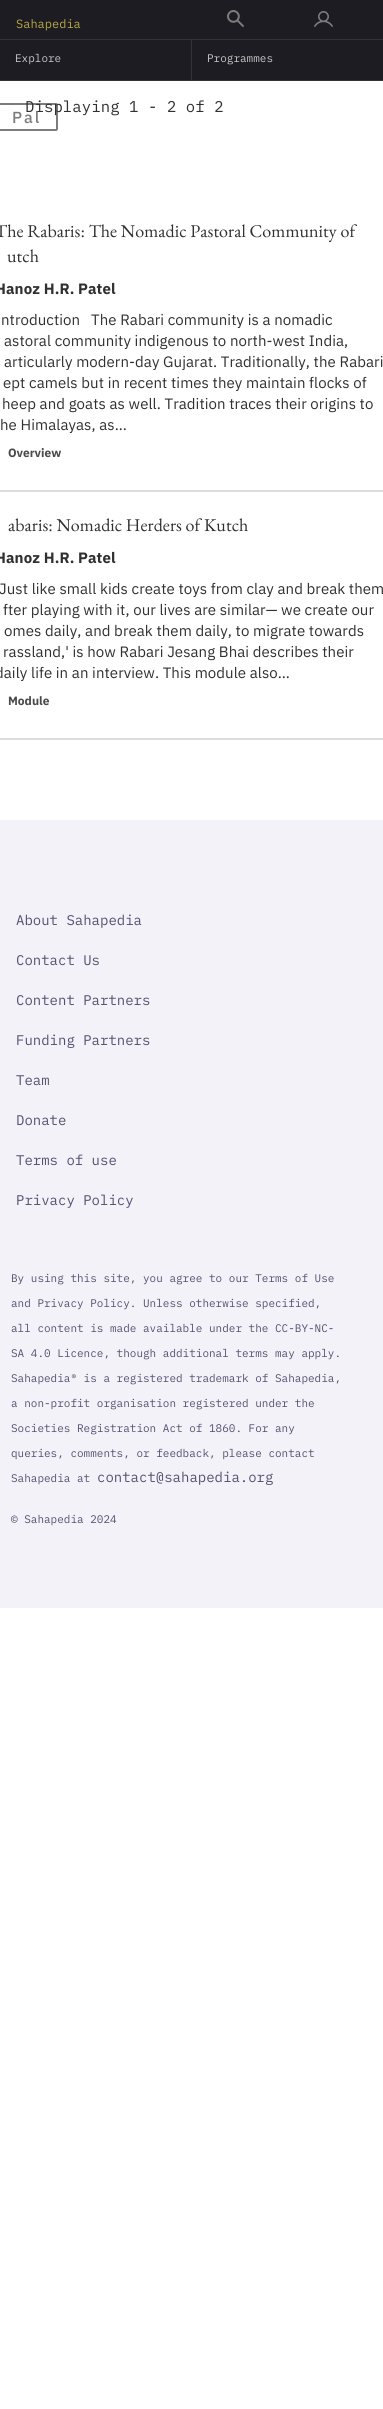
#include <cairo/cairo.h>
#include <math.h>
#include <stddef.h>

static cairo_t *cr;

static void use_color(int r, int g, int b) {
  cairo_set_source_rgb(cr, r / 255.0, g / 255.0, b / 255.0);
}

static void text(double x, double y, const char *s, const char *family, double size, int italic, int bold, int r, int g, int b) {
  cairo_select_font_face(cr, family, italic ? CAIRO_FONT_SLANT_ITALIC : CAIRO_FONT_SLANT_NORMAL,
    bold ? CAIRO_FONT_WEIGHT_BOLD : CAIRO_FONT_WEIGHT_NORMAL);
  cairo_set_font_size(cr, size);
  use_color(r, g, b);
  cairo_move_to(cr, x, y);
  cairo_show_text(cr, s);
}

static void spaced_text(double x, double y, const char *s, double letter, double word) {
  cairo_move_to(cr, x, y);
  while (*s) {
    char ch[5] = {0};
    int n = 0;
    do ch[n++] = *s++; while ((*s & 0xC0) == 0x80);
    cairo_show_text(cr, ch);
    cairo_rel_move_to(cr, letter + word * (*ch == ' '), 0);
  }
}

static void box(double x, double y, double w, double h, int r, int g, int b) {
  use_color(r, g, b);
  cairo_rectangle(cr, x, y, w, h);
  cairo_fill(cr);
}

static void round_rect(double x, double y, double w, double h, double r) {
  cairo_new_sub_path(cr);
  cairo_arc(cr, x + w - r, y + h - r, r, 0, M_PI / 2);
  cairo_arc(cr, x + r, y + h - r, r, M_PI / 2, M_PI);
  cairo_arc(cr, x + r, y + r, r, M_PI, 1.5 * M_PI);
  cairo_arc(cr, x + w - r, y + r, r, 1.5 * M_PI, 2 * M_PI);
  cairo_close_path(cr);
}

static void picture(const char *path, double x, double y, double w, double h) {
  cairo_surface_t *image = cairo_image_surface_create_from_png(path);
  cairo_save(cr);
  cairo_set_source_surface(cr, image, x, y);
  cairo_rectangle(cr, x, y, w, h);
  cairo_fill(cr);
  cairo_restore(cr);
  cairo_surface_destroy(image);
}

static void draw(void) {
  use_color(255, 255, 255);
  cairo_paint(cr);
  box(0, 0, 383, 39, 29, 28, 34);
  box(0, 39, 383, 1, 52, 50, 57);
  picture("img_01.png", 227, 10, 17, 17);
  picture("img_02.png", 314, 11, 19, 16);
  box(0, 80, 383, 1, 52, 50, 57);
  box(0, 40, 191, 40, 29, 28, 34);
  box(191, 40, 1, 40, 52, 50, 57);
  box(192, 40, 191, 40, 29, 28, 34);
  box(0, 490, 383, 2, 220, 220, 220);
  box(0, 738, 383, 2, 220, 220, 220);
  round_rect(-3, 104, 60, 26, 1);
  use_color(124, 124, 124);
  cairo_stroke(cr);
  box(0, 820, 383, 788, 243, 242, 248);
  text(16, 28, "Sahapedia", "IBM Plex Mono", 12, 0, 0, 179, 171, 68);
  text(15, 62, "Explore", "IBM Plex Mono", 11, 0, 0, 200, 200, 200);
  text(207, 62, "Programmes", "IBM Plex Mono", 11, 0, 0, 200, 200, 200);
  cairo_set_font_size(cr, 15.6);
  use_color(48, 48, 48);
  spaced_text(25, 112, "Displaying 1 - 2 of 2", 0.1, 0);
  cairo_select_font_face(cr, "EB Garamond", CAIRO_FONT_SLANT_NORMAL, CAIRO_FONT_WEIGHT_NORMAL);
  cairo_set_font_size(cr, 18);
  spaced_text(-5, 237, "The Rabaris: The Nomadic Pastoral Community of", 0.07, 0);
  spaced_text(7, 262, "utch", 0.07, 0);
  cairo_select_font_face(cr, "IBM Plex Sans", CAIRO_FONT_SLANT_NORMAL, CAIRO_FONT_WEIGHT_BOLD);
  cairo_set_font_size(cr, 15);
  spaced_text(-5, 294, "Hanoz H.R. Patel", 0.1, 0);
  cairo_select_font_face(cr, "IBM Plex Sans", CAIRO_FONT_SLANT_NORMAL, CAIRO_FONT_WEIGHT_NORMAL);
  spaced_text(1, 325, "ntroduction   The Rabari community is a nomadic", 0.07, 0);
  spaced_text(4, 346, "astoral community indigenous to north-west India,", 0.07, 0);
  spaced_text(4, 367, "articularly modern-day Gujarat. Traditionally, the Rabari", 0.07, 0);
  spaced_text(3, 388, "ept camels but in recent times they maintain flocks of", 0.07, 0);
  spaced_text(2, 409, "heep and goats as well. Tradition traces their origins to", 0.07, 0);
  spaced_text(0, 430, "he Himalayas, as…", 0.07, 0);
  text(8, 457, "Overview", "IBM Plex Sans", 12, 0, 1, 74, 74, 74);
  cairo_select_font_face(cr, "EB Garamond", CAIRO_FONT_SLANT_NORMAL, CAIRO_FONT_WEIGHT_NORMAL);
  cairo_set_font_size(cr, 18);
  use_color(48, 48, 48);
  spaced_text(8, 531, "abaris: Nomadic Herders of Kutch", 0.07, 0);
  cairo_select_font_face(cr, "IBM Plex Sans", CAIRO_FONT_SLANT_NORMAL, CAIRO_FONT_WEIGHT_BOLD);
  cairo_set_font_size(cr, 15);
  spaced_text(-5, 563, "Hanoz H.R. Patel", 0.1, 0);
  cairo_select_font_face(cr, "IBM Plex Sans", CAIRO_FONT_SLANT_NORMAL, CAIRO_FONT_WEIGHT_NORMAL);
  spaced_text(-1, 594, "Just like small kids create toys from clay and break them", 0.07, 0);
  spaced_text(3, 615, "fter playing with it, our lives are similar— we create our", 0.07, 0);
  spaced_text(4, 636, "omes daily, and break them daily, to migrate towards", 0.07, 0);
  spaced_text(3, 657, "rassland,' is how Rabari Jesang Bhai describes their", 0.07, 0);
  spaced_text(-5, 678, "daily life in an interview. This module also…", 0.07, 0);
  text(8, 705, "Module", "IBM Plex Sans", 12, 0, 1, 74, 74, 74);
  cairo_select_font_face(cr, "IBM Plex Sans Medium", CAIRO_FONT_SLANT_NORMAL, CAIRO_FONT_WEIGHT_NORMAL);
  cairo_set_font_size(cr, 16);
  use_color(124, 124, 124);
  spaced_text(12, 123, "Pal", 2, 0);
  text(16, 925, "About Sahapedia", "IBM Plex Mono", 14, 0, 0, 86, 80, 112);
  text(16, 965, "Contact Us", "IBM Plex Mono", 14, 0, 0, 86, 80, 112);
  text(16, 1005, "Content Partners", "IBM Plex Mono", 14, 0, 0, 86, 80, 112);
  text(16, 1045, "Funding Partners", "IBM Plex Mono", 14, 0, 0, 86, 80, 112);
  text(16, 1085, "Team", "IBM Plex Mono", 14, 0, 0, 86, 80, 112);
  text(16, 1125, "Donate", "IBM Plex Mono", 14, 0, 0, 86, 80, 112);
  text(16, 1165, "Terms of use", "IBM Plex Mono", 14, 0, 0, 86, 80, 112);
  text(16, 1205, "Privacy Policy", "IBM Plex Mono", 14, 0, 0, 86, 80, 112);
  text(11, 1282, "By using this site, you agree to our Terms of Use", "IBM Plex Mono", 11, 0, 0, 86, 80, 112);
  text(11, 1307, "and Privacy Policy. Unless otherwise specified,", "IBM Plex Mono", 11, 0, 0, 86, 80, 112);
  text(11, 1332, "all content is made available under the CC-BY-NC-", "IBM Plex Mono", 11, 0, 0, 86, 80, 112);
  text(11, 1357, "SA 4.0 Licence, though additional terms may apply.", "IBM Plex Mono", 11, 0, 0, 86, 80, 112);
  text(11, 1382, "Sahapedia® is a registered trademark of Sahapedia,", "IBM Plex Mono", 11, 0, 0, 86, 80, 112);
  text(11, 1407, "a non-profit organisation registered under the", "IBM Plex Mono", 11, 0, 0, 86, 80, 112);
  text(11, 1432, "Societies Registration Act of 1860. For any", "IBM Plex Mono", 11, 0, 0, 86, 80, 112);
  text(11, 1457, "queries, comments, or feedback, please contact", "IBM Plex Mono", 11, 0, 0, 86, 80, 112);
  text(11, 1482, "Sahapedia at", "IBM Plex Mono", 11, 0, 0, 86, 80, 112);
  text(97, 1482, "contact@sahapedia.org", "IBM Plex Mono", 14, 0, 0, 86, 80, 112);
  text(11, 1523, "© Sahapedia 2024", "IBM Plex Mono", 11, 0, 0, 86, 80, 112);
}

int main(void) {
  cairo_surface_t *surface = cairo_image_surface_create(CAIRO_FORMAT_RGB24, 383, 2409);
  cr = cairo_create(surface);
  cairo_font_options_t *options = cairo_font_options_create();
  cairo_font_options_set_hint_metrics(options, CAIRO_HINT_METRICS_OFF);
  cairo_font_options_set_hint_style(options, CAIRO_HINT_STYLE_NONE);
  cairo_set_font_options(cr, options);
  cairo_set_miter_limit(cr, 4);
  draw();
  cairo_surface_write_to_png(surface, "out.png");
  cairo_font_options_destroy(options);
  cairo_destroy(cr);
  cairo_surface_destroy(surface);
  return 0;
}
